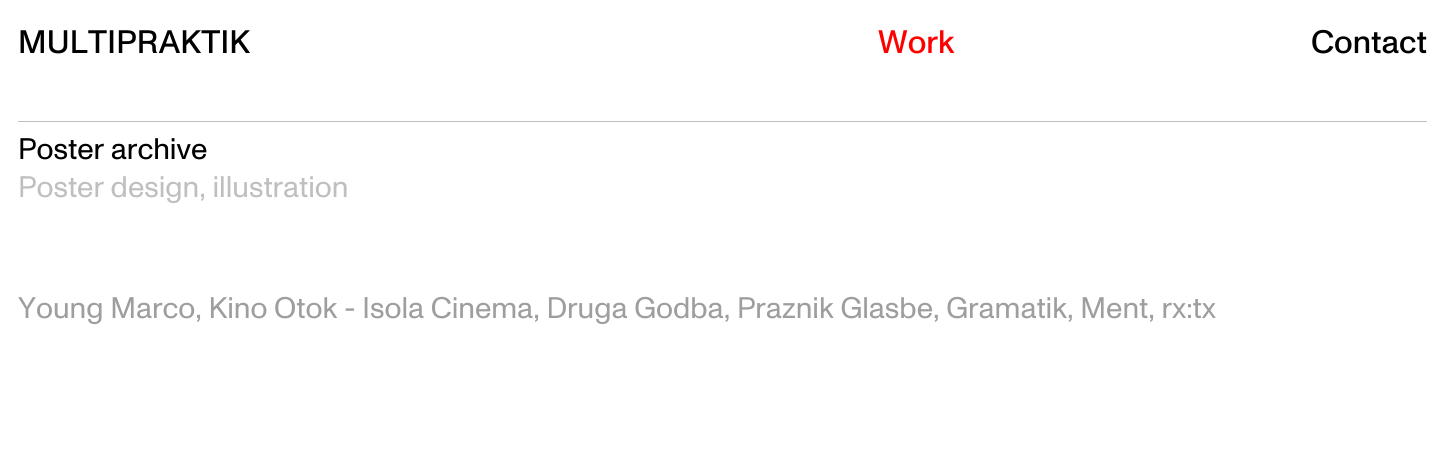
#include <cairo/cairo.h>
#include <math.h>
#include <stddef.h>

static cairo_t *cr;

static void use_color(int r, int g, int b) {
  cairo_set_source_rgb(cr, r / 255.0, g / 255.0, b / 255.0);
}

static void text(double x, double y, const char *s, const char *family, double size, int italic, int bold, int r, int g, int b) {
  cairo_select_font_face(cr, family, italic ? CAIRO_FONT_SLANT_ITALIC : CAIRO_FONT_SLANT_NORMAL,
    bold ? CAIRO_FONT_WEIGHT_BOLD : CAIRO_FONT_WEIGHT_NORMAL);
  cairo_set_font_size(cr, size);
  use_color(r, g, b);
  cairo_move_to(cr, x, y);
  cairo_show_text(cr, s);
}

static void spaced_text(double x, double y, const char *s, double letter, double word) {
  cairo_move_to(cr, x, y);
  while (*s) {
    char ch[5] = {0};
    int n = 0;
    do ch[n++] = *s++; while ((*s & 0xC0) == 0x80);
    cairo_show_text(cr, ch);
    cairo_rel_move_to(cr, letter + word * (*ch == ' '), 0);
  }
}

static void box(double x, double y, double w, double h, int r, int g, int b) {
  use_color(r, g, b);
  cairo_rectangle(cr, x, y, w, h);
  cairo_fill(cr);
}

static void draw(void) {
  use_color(255, 255, 255);
  cairo_paint(cr);
  box(18, 121, 1409, 1, 191, 191, 191);
  cairo_select_font_face(cr, "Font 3", CAIRO_FONT_SLANT_NORMAL, CAIRO_FONT_WEIGHT_NORMAL);
  cairo_set_font_size(cr, 32.5);
  use_color(0, 0, 0);
  spaced_text(18, 53, "MULTIPRAKTIK", 0.25, 0);
  text(878, 53, "Work", "Font 3", 32.5, 0, 0, 255, 0, 0);
  text(1311, 53, "Contact", "Font 3", 32.5, 0, 0, 0, 0, 0);
  text(18, 159, "Poster archive", "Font", 29.75, 0, 0, 0, 0, 0);
  text(18, 197, "Poster design, illustration", "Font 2", 29.75, 0, 0, 191, 191, 191);
  text(18, 318, "Young Marco, Kino Otok - Isola Cinema, Druga Godba, Praznik Glasbe, Gramatik, Ment, rx:tx", "Font 2", 29.75, 0, 0, 158, 158, 158);
}

int main(void) {
  cairo_surface_t *surface = cairo_image_surface_create(CAIRO_FORMAT_RGB24, 1445, 476);
  cr = cairo_create(surface);
  cairo_font_options_t *options = cairo_font_options_create();
  cairo_font_options_set_hint_metrics(options, CAIRO_HINT_METRICS_OFF);
  cairo_font_options_set_hint_style(options, CAIRO_HINT_STYLE_NONE);
  cairo_set_font_options(cr, options);
  cairo_set_miter_limit(cr, 4);
  draw();
  cairo_surface_write_to_png(surface, "out.png");
  cairo_font_options_destroy(options);
  cairo_destroy(cr);
  cairo_surface_destroy(surface);
  return 0;
}
